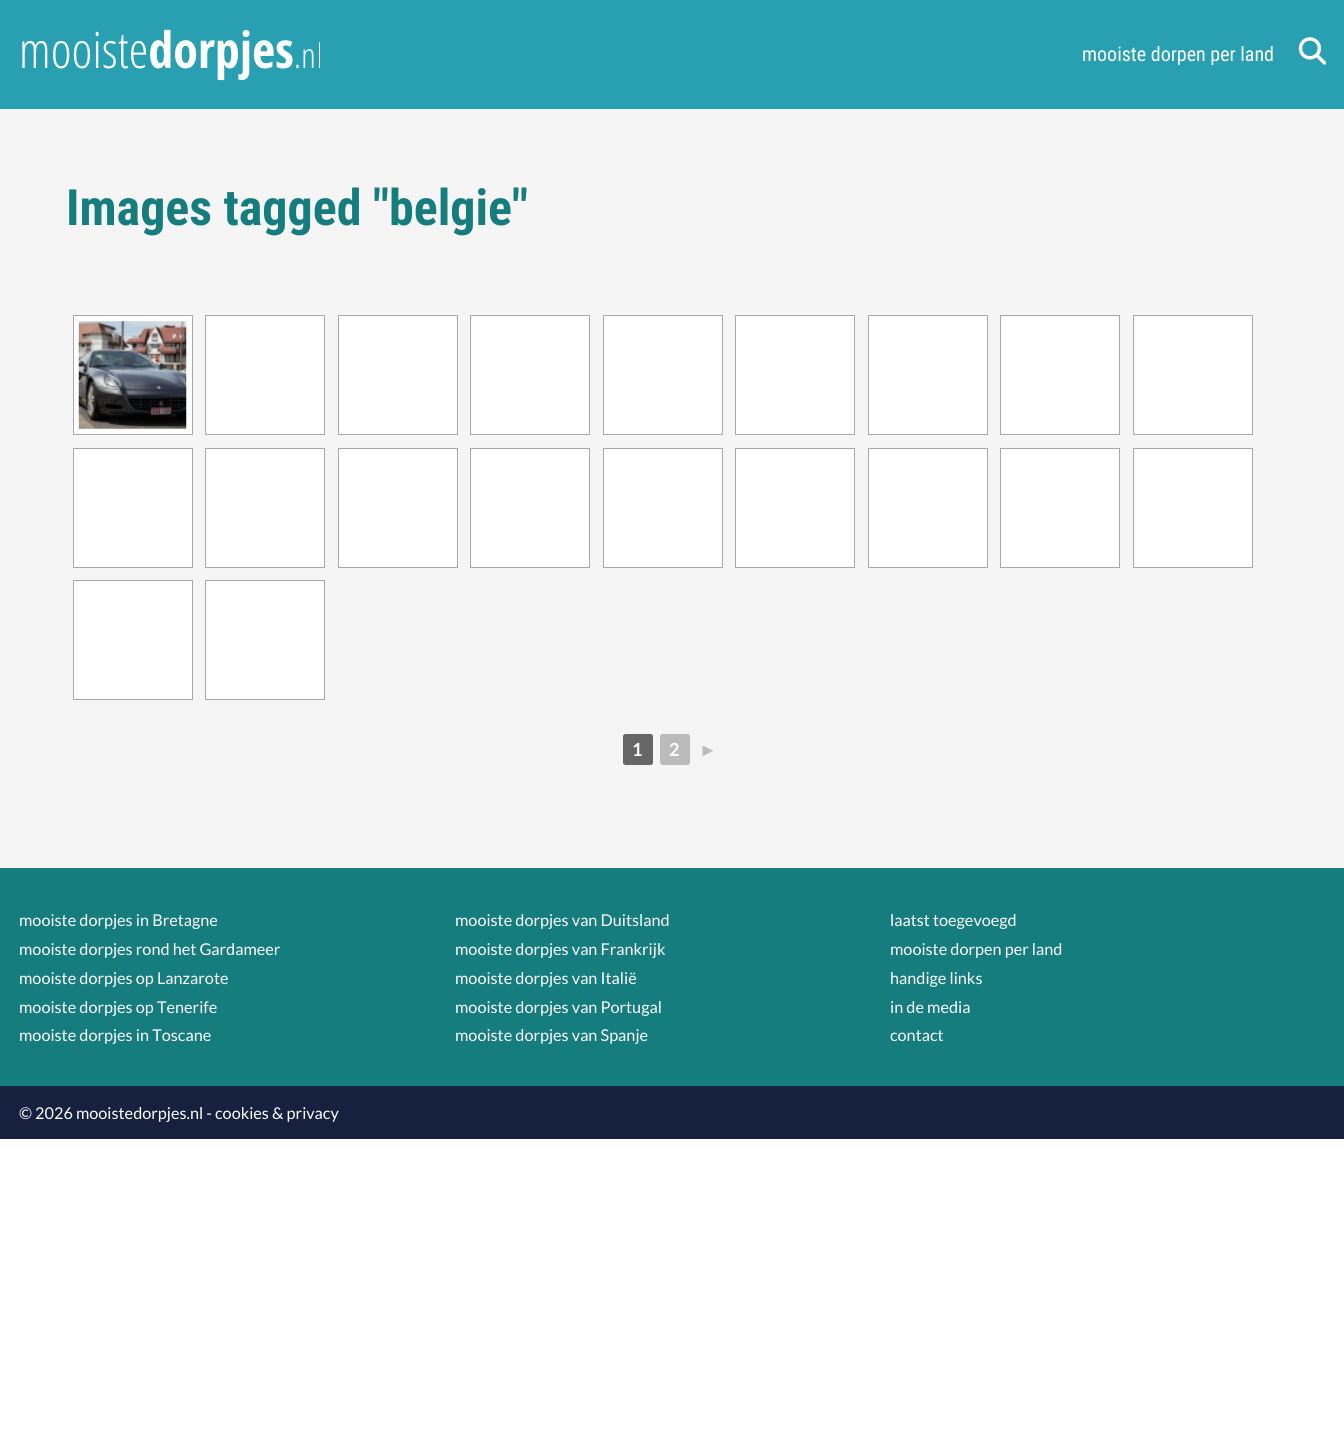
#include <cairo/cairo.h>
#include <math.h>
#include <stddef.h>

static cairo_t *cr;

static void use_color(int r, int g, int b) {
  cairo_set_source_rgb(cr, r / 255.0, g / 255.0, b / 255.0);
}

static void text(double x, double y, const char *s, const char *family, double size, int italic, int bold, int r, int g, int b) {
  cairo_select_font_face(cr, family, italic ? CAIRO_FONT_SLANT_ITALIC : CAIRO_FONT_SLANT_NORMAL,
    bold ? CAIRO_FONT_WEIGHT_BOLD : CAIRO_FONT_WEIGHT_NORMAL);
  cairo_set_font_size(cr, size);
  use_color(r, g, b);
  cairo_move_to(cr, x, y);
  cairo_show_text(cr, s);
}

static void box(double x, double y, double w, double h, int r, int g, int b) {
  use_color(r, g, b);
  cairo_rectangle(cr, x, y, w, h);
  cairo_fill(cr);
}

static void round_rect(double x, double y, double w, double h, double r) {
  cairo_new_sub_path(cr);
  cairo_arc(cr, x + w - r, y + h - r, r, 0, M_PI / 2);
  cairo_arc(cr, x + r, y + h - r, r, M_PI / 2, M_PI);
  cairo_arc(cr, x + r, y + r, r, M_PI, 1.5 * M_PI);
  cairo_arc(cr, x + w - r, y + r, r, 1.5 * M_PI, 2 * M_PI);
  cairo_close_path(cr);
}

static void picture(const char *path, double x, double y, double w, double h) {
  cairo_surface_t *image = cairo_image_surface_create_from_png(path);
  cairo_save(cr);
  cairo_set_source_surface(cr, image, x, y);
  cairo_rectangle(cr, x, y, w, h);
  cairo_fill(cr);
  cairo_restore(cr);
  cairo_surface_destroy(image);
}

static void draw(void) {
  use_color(255, 255, 255);
  cairo_paint(cr);
  box(0, 0, 1344, 109, 41, 160, 177);
  picture("img_01.png", 22, 29, 298, 52);
  picture("img_02.png", 1298, 37, 28, 28);
  box(0, 109, 1344, 759, 245, 245, 245);
  use_color(255, 255, 255);
  cairo_rectangle(cr, 73.5, 315.5, 119, 119);
  cairo_fill_preserve(cr);
  use_color(169, 169, 169);
  cairo_set_line_width(cr, 1);
  cairo_stroke(cr);
  picture("img_03.png", 78, 321, 109, 108);
  use_color(255, 255, 255);
  cairo_rectangle(cr, 205.5, 315.5, 119, 119);
  cairo_fill_preserve(cr);
  use_color(169, 169, 169);
  cairo_stroke(cr);
  use_color(255, 255, 255);
  cairo_rectangle(cr, 338.5, 315.5, 119, 119);
  cairo_fill_preserve(cr);
  use_color(169, 169, 169);
  cairo_stroke(cr);
  use_color(255, 255, 255);
  cairo_rectangle(cr, 470.5, 315.5, 119, 119);
  cairo_fill_preserve(cr);
  use_color(169, 169, 169);
  cairo_stroke(cr);
  use_color(255, 255, 255);
  cairo_rectangle(cr, 603.5, 315.5, 119, 119);
  cairo_fill_preserve(cr);
  use_color(169, 169, 169);
  cairo_stroke(cr);
  use_color(255, 255, 255);
  cairo_rectangle(cr, 735.5, 315.5, 119, 119);
  cairo_fill_preserve(cr);
  use_color(169, 169, 169);
  cairo_stroke(cr);
  use_color(255, 255, 255);
  cairo_rectangle(cr, 868.5, 315.5, 119, 119);
  cairo_fill_preserve(cr);
  use_color(169, 169, 169);
  cairo_stroke(cr);
  use_color(255, 255, 255);
  cairo_rectangle(cr, 1000.5, 315.5, 119, 119);
  cairo_fill_preserve(cr);
  use_color(169, 169, 169);
  cairo_stroke(cr);
  use_color(255, 255, 255);
  cairo_rectangle(cr, 1133.5, 315.5, 119, 119);
  cairo_fill_preserve(cr);
  use_color(169, 169, 169);
  cairo_stroke(cr);
  use_color(255, 255, 255);
  cairo_rectangle(cr, 73.5, 448.5, 119, 119);
  cairo_fill_preserve(cr);
  use_color(169, 169, 169);
  cairo_stroke(cr);
  use_color(255, 255, 255);
  cairo_rectangle(cr, 205.5, 448.5, 119, 119);
  cairo_fill_preserve(cr);
  use_color(169, 169, 169);
  cairo_stroke(cr);
  use_color(255, 255, 255);
  cairo_rectangle(cr, 338.5, 448.5, 119, 119);
  cairo_fill_preserve(cr);
  use_color(169, 169, 169);
  cairo_stroke(cr);
  use_color(255, 255, 255);
  cairo_rectangle(cr, 470.5, 448.5, 119, 119);
  cairo_fill_preserve(cr);
  use_color(169, 169, 169);
  cairo_stroke(cr);
  use_color(255, 255, 255);
  cairo_rectangle(cr, 603.5, 448.5, 119, 119);
  cairo_fill_preserve(cr);
  use_color(169, 169, 169);
  cairo_stroke(cr);
  use_color(255, 255, 255);
  cairo_rectangle(cr, 735.5, 448.5, 119, 119);
  cairo_fill_preserve(cr);
  use_color(169, 169, 169);
  cairo_stroke(cr);
  use_color(255, 255, 255);
  cairo_rectangle(cr, 868.5, 448.5, 119, 119);
  cairo_fill_preserve(cr);
  use_color(169, 169, 169);
  cairo_stroke(cr);
  use_color(255, 255, 255);
  cairo_rectangle(cr, 1000.5, 448.5, 119, 119);
  cairo_fill_preserve(cr);
  use_color(169, 169, 169);
  cairo_stroke(cr);
  use_color(255, 255, 255);
  cairo_rectangle(cr, 1133.5, 448.5, 119, 119);
  cairo_fill_preserve(cr);
  use_color(169, 169, 169);
  cairo_stroke(cr);
  use_color(255, 255, 255);
  cairo_rectangle(cr, 73.5, 580.5, 119, 119);
  cairo_fill_preserve(cr);
  use_color(169, 169, 169);
  cairo_stroke(cr);
  use_color(255, 255, 255);
  cairo_rectangle(cr, 205.5, 580.5, 119, 119);
  cairo_fill_preserve(cr);
  use_color(169, 169, 169);
  cairo_stroke(cr);
  use_color(102, 102, 102);
  round_rect(623, 734, 30, 31, 2.5);
  cairo_fill(cr);
  use_color(187, 187, 187);
  round_rect(660, 734, 30, 31, 2.5);
  cairo_fill(cr);
  box(0, 868, 1344, 218, 22, 125, 127);
  box(0, 1086, 1344, 53, 21, 33, 63);
  text(1082, 61, "mooiste dorpen per land", "Roboto Condensed", 20, 0, 0, 255, 255, 255);
  text(66, 225, "Images tagged \"belgie\"", "Roboto Condensed", 50, 0, 1, 22, 125, 127);
  text(632, 756, "1", "Lato", 18, 0, 1, 255, 255, 255);
  text(669, 756, "2", "Lato", 18, 0, 1, 255, 255, 255);
  text(699, 756, "►", "Liberation Sans", 18, 0, 1, 187, 187, 187);
  text(19, 926, "mooiste dorpjes in Bretagne", "Lato", 16.25, 0, 0, 255, 255, 255);
  text(19, 955, "mooiste dorpjes rond het Gardameer", "Lato", 16.25, 0, 0, 255, 255, 255);
  text(19, 984, "mooiste dorpjes op Lanzarote", "Lato", 16.25, 0, 0, 255, 255, 255);
  text(19, 1013, "mooiste dorpjes op Tenerife", "Lato", 16.25, 0, 0, 255, 255, 255);
  text(19, 1041, "mooiste dorpjes in Toscane", "Lato", 16.25, 0, 0, 255, 255, 255);
  text(455, 926, "mooiste dorpjes van Duitsland", "Lato", 16.25, 0, 0, 255, 255, 255);
  text(455, 955, "mooiste dorpjes van Frankrijk", "Lato", 16.25, 0, 0, 255, 255, 255);
  text(455, 984, "mooiste dorpjes van Italië", "Lato", 16.25, 0, 0, 255, 255, 255);
  text(455, 1013, "mooiste dorpjes van Portugal", "Lato", 16.25, 0, 0, 255, 255, 255);
  text(455, 1041, "mooiste dorpjes van Spanje", "Lato", 16.25, 0, 0, 255, 255, 255);
  text(890, 926, "laatst toegevoegd", "Lato", 16.25, 0, 0, 255, 255, 255);
  text(890, 955, "mooiste dorpen per land", "Lato", 16.25, 0, 0, 255, 255, 255);
  text(890, 984, "handige links", "Lato", 16.25, 0, 0, 255, 255, 255);
  text(890, 1013, "in de media", "Lato", 16.25, 0, 0, 255, 255, 255);
  text(890, 1041, "contact", "Lato", 16.25, 0, 0, 255, 255, 255);
  text(19, 1119, "© 2026 mooistedorpjes.nl - cookies & privacy", "Lato", 16.25, 0, 0, 255, 255, 255);
}

int main(void) {
  cairo_surface_t *surface = cairo_image_surface_create(CAIRO_FORMAT_RGB24, 1344, 1429);
  cr = cairo_create(surface);
  cairo_font_options_t *options = cairo_font_options_create();
  cairo_font_options_set_hint_metrics(options, CAIRO_HINT_METRICS_OFF);
  cairo_font_options_set_hint_style(options, CAIRO_HINT_STYLE_NONE);
  cairo_set_font_options(cr, options);
  cairo_set_miter_limit(cr, 4);
  draw();
  cairo_surface_write_to_png(surface, "out.png");
  cairo_font_options_destroy(options);
  cairo_destroy(cr);
  cairo_surface_destroy(surface);
  return 0;
}
